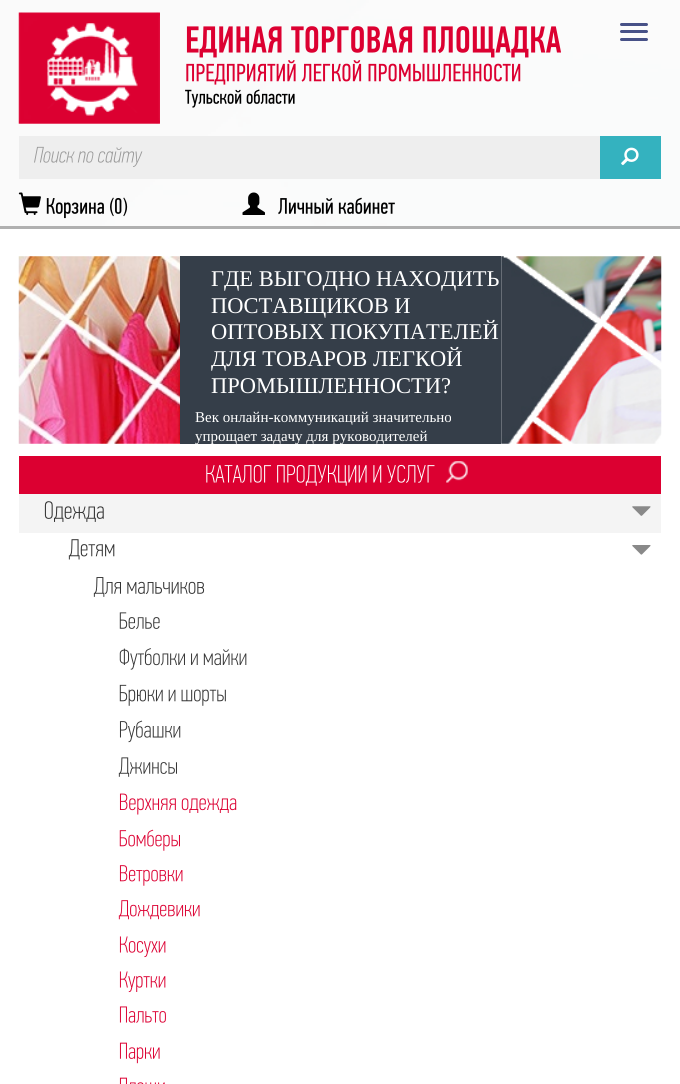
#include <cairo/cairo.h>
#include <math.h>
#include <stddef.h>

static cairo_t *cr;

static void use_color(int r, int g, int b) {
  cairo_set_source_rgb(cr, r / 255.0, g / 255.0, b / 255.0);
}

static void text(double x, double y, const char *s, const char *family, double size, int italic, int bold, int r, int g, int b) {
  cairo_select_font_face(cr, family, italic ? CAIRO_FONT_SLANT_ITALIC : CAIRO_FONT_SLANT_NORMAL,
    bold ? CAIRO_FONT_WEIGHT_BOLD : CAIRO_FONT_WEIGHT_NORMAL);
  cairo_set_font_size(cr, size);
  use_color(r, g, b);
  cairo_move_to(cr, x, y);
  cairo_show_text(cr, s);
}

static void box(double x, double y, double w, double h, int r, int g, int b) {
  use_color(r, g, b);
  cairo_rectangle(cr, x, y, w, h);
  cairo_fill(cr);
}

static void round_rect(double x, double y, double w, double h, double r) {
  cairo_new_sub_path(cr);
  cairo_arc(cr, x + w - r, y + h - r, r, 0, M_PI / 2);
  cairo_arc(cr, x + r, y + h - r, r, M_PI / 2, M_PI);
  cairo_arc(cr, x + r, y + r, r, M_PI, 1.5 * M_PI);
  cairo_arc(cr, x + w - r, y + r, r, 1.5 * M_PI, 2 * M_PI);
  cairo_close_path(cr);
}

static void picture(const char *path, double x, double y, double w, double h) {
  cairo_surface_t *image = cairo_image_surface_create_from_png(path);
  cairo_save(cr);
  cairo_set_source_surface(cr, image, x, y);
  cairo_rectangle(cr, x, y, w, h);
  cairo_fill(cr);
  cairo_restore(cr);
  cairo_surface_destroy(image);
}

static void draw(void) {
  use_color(255, 255, 255);
  cairo_paint(cr);
  picture("img_01.png", 0, 0, 680, 226);
  box(0, 226, 680, 3, 176, 176, 176);
  picture("img_02.png", 18, 12, 142, 112);
  picture("img_03.png", 186, 26, 375, 32);
  picture("img_04.png", 186, 60, 335, 25);
  picture("img_05.png", 185, 89, 110, 19);
  box(19, 136, 581, 43, 238, 238, 238);
  picture("img_06.png", 34, 146, 109, 21);
  box(600, 136, 61, 43, 52, 178, 191);
  picture("img_07.png", 621, 147, 18, 19);
  picture("img_08.png", 18, 192, 23, 23);
  picture("img_09.png", 46, 197, 82, 22);
  picture("img_10.png", 242, 192, 23, 23);
  picture("img_11.png", 278, 197, 117, 18);
  use_color(71, 81, 135);
  round_rect(620, 23, 28, 3, 1.5);
  cairo_fill(cr);
  round_rect(620, 30, 28, 3, 1.5);
  cairo_fill(cr);
  round_rect(620, 38, 28, 3, 1.5);
  cairo_fill(cr);
  picture("img_12.png", 18, 256, 162, 188);
  box(180, 256, 321, 188, 53, 62, 73);
  picture("img_13.png", 501, 256, 161, 188);
  box(19, 456, 642, 38, 220, 0, 49);
  picture("img_14.png", 206, 464, 229, 22);
  picture("img_15.png", 446, 461, 22, 22);
  box(19, 494, 642, 39, 244, 244, 244);
  picture("img_16.png", 44, 501, 60, 21);
  picture("img_17.png", 632, 506, 19, 10);
  picture("img_18.png", 68, 539, 47, 21);
  picture("img_19.png", 632, 545, 19, 10);
  picture("img_20.png", 93, 577, 112, 20);
  picture("img_21.png", 119, 612, 41, 18);
  picture("img_22.png", 119, 648, 128, 22);
  picture("img_23.png", 119, 684, 107, 22);
  picture("img_24.png", 119, 720, 62, 23);
  picture("img_25.png", 118, 757, 59, 20);
  picture("img_26.png", 119, 793, 118, 22);
  picture("img_27.png", 119, 829, 61, 22);
  picture("img_28.png", 119, 865, 64, 21);
  picture("img_29.png", 118, 900, 82, 20);
  picture("img_30.png", 119, 936, 47, 22);
  picture("img_31.png", 119, 971, 47, 22);
  picture("img_32.png", 119, 1006, 47, 17);
  picture("img_33.png", 119, 1042, 41, 22);
  picture("img_34.png", 119, 1077, 46, 7);
  text(211, 286, "ГДЕ ВЫГОДНО НАХОДИТЬ", "Liberation Serif", 22.5, 0, 0, 255, 255, 255);
  text(211, 313, "ПОСТАВЩИКОВ И", "Liberation Serif", 22.5, 0, 0, 255, 255, 255);
  text(211, 339, "ОПТОВЫХ ПОКУПАТЕЛЕЙ", "Liberation Serif", 22.5, 0, 0, 255, 255, 255);
  text(211, 366, "ДЛЯ ТОВАРОВ ЛЕГКОЙ", "Liberation Serif", 22.5, 0, 0, 255, 255, 255);
  text(211, 393, "ПРОМЫШЛЕННОСТИ?", "Liberation Serif", 22.5, 0, 0, 255, 255, 255);
  text(195, 422, "Век онлайн-коммуникаций значительно", "Liberation Serif", 15, 0, 0, 255, 255, 255);
  text(195, 441, "упрощает задачу для руководителей", "Liberation Serif", 15, 0, 0, 255, 255, 255);
}

int main(void) {
  cairo_surface_t *surface = cairo_image_surface_create(CAIRO_FORMAT_RGB24, 680, 1084);
  cr = cairo_create(surface);
  cairo_font_options_t *options = cairo_font_options_create();
  cairo_font_options_set_hint_metrics(options, CAIRO_HINT_METRICS_OFF);
  cairo_font_options_set_hint_style(options, CAIRO_HINT_STYLE_NONE);
  cairo_set_font_options(cr, options);
  cairo_set_miter_limit(cr, 4);
  draw();
  cairo_surface_write_to_png(surface, "out.png");
  cairo_font_options_destroy(options);
  cairo_destroy(cr);
  cairo_surface_destroy(surface);
  return 0;
}
